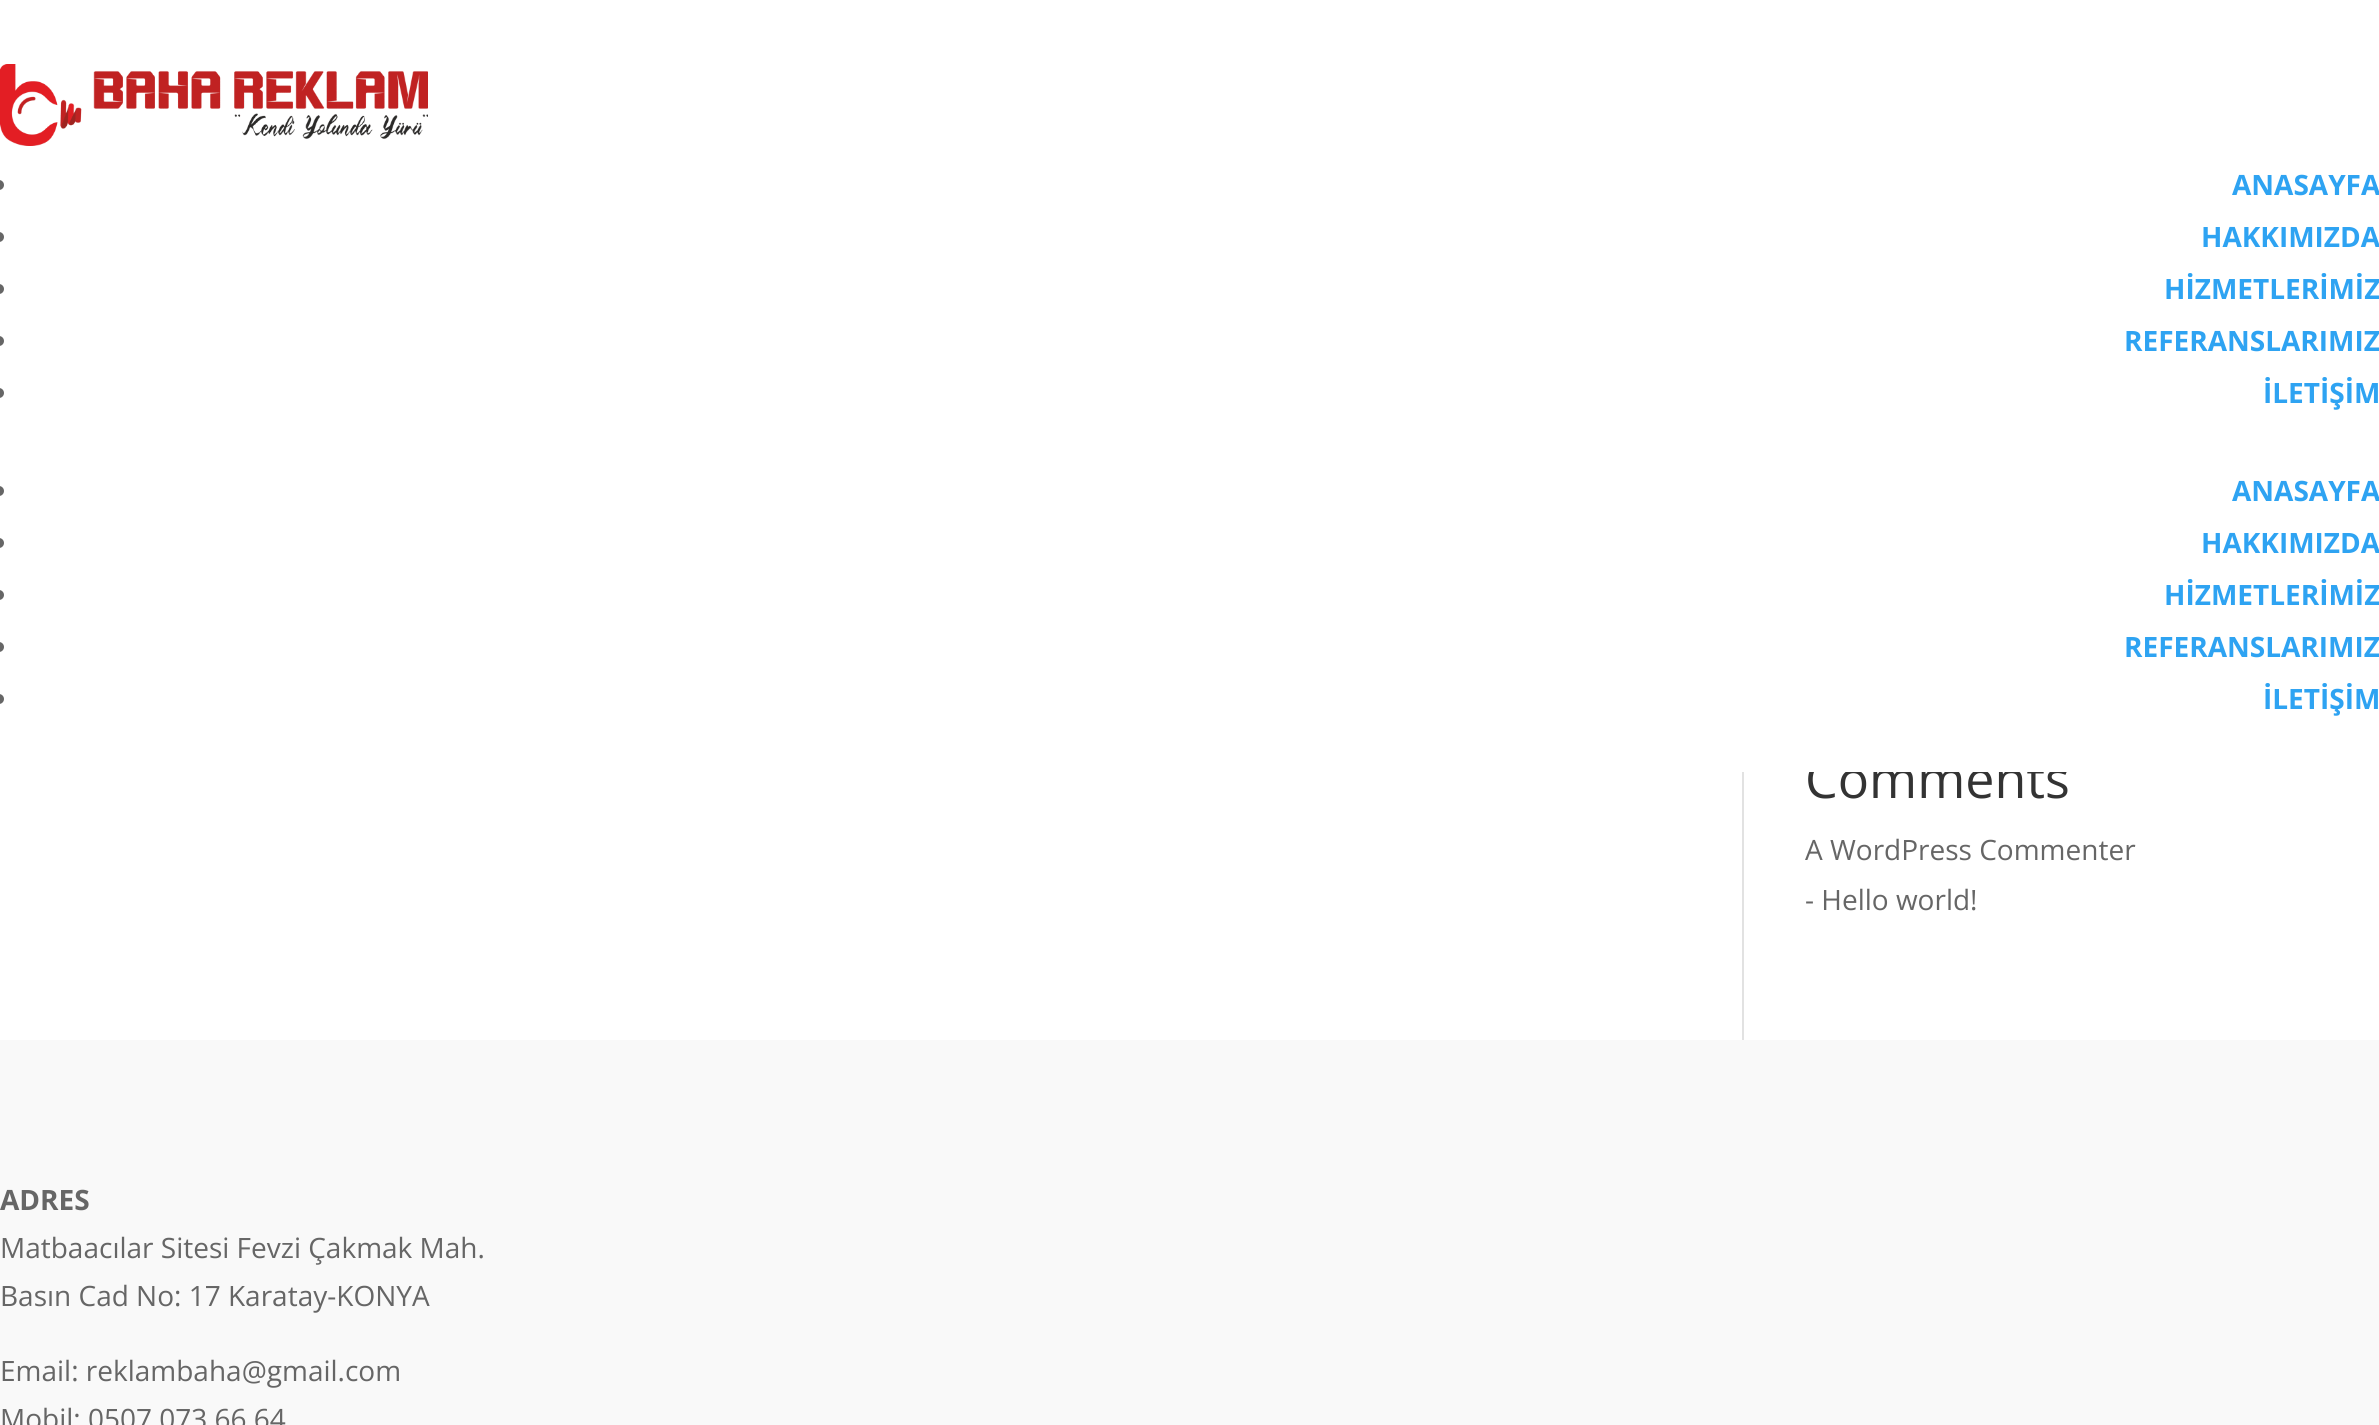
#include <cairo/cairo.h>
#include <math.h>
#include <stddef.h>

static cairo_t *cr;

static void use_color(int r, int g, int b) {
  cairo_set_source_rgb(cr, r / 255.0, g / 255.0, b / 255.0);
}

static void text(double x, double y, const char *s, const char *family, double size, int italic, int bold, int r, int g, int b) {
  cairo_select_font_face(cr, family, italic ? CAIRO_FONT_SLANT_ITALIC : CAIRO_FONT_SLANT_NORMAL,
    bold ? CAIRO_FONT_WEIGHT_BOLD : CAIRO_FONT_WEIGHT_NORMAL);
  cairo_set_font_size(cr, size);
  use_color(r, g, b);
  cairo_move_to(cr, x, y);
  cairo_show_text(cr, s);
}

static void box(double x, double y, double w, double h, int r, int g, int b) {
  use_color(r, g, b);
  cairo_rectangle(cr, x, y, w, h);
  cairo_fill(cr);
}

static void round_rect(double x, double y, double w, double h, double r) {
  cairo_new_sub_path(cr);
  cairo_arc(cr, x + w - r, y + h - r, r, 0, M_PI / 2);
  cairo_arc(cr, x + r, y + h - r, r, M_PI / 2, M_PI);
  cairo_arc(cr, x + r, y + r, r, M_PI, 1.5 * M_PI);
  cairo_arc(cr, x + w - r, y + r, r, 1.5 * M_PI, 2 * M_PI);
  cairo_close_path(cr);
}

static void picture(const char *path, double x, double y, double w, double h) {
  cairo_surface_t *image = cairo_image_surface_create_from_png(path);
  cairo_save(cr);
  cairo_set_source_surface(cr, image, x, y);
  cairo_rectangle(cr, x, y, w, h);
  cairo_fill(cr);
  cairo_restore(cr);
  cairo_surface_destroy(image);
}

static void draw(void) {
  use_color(255, 255, 255);
  cairo_paint(cr);
  picture("img_01.png", 0, 64, 428, 82);
  use_color(102, 102, 102);
  round_rect(-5, 180, 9, 10, 5);
  cairo_fill(cr);
  round_rect(-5, 232, 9, 10, 5);
  cairo_fill(cr);
  round_rect(-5, 284, 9, 10, 5);
  cairo_fill(cr);
  round_rect(-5, 336, 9, 10, 5);
  cairo_fill(cr);
  round_rect(-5, 388, 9, 10, 5);
  cairo_fill(cr);
  round_rect(-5, 486, 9, 10, 5);
  cairo_fill(cr);
  round_rect(-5, 538, 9, 10, 5);
  cairo_fill(cr);
  round_rect(-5, 590, 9, 10, 5);
  cairo_fill(cr);
  round_rect(-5, 642, 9, 10, 5);
  cairo_fill(cr);
  round_rect(-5, 694, 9, 10, 5);
  cairo_fill(cr);
  box(1742, 772, 2, 268, 226, 226, 226);
  box(0, 1040, 2379, 385, 249, 249, 249);
  text(2232, 195, "ANASAYFA", "Open Sans", 28, 0, 1, 46, 163, 242);
  text(2201, 247, "HAKKIMIZDA", "Open Sans", 28, 0, 1, 46, 163, 242);
  text(2164, 299, "HİZMETLERİMİZ", "Open Sans", 28, 0, 1, 46, 163, 242);
  text(2124, 351, "REFERANSLARIMIZ", "Open Sans", 28, 0, 1, 46, 163, 242);
  text(2263, 403, "İLETİŞİM", "Open Sans", 28, 0, 1, 46, 163, 242);
  text(2232, 501, "ANASAYFA", "Open Sans", 28, 0, 1, 46, 163, 242);
  text(2201, 553, "HAKKIMIZDA", "Open Sans", 28, 0, 1, 46, 163, 242);
  text(2164, 605, "HİZMETLERİMİZ", "Open Sans", 28, 0, 1, 46, 163, 242);
  text(2124, 657, "REFERANSLARIMIZ", "Open Sans", 28, 0, 1, 46, 163, 242);
  text(2263, 709, "İLETİŞİM", "Open Sans", 28, 0, 1, 46, 163, 242);
  text(1805, 798, "Comments", "Open Sans", 52, 0, 0, 51, 51, 51);
  box(1808, 760, 259, 12, 255, 255, 255);
  text(1805, 860, "A WordPress Commenter", "Open Sans", 28, 0, 0, 102, 102, 102);
  text(1805, 910, "- Hello world!", "Open Sans", 28, 0, 0, 102, 102, 102);
  text(0, 1210, "ADRES", "Open Sans", 28, 0, 1, 102, 102, 102);
  text(0, 1258, "Matbaacılar Sitesi Fevzi Çakmak Mah.", "Open Sans", 28, 0, 0, 102, 102, 102);
  text(0, 1306, "Basın Cad No: 17 Karatay-KONYA", "Open Sans", 28, 0, 0, 102, 102, 102);
  text(0, 1381, "Email: reklambaha@gmail.com", "Open Sans", 28, 0, 0, 102, 102, 102);
  text(0, 1429, "Mobil: 0507 073 66 64", "Open Sans", 28, 0, 0, 102, 102, 102);
}

int main(void) {
  cairo_surface_t *surface = cairo_image_surface_create(CAIRO_FORMAT_RGB24, 2379, 1425);
  cr = cairo_create(surface);
  cairo_font_options_t *options = cairo_font_options_create();
  cairo_font_options_set_hint_metrics(options, CAIRO_HINT_METRICS_OFF);
  cairo_font_options_set_hint_style(options, CAIRO_HINT_STYLE_NONE);
  cairo_set_font_options(cr, options);
  cairo_set_miter_limit(cr, 4);
  draw();
  cairo_surface_write_to_png(surface, "out.png");
  cairo_font_options_destroy(options);
  cairo_destroy(cr);
  cairo_surface_destroy(surface);
  return 0;
}
